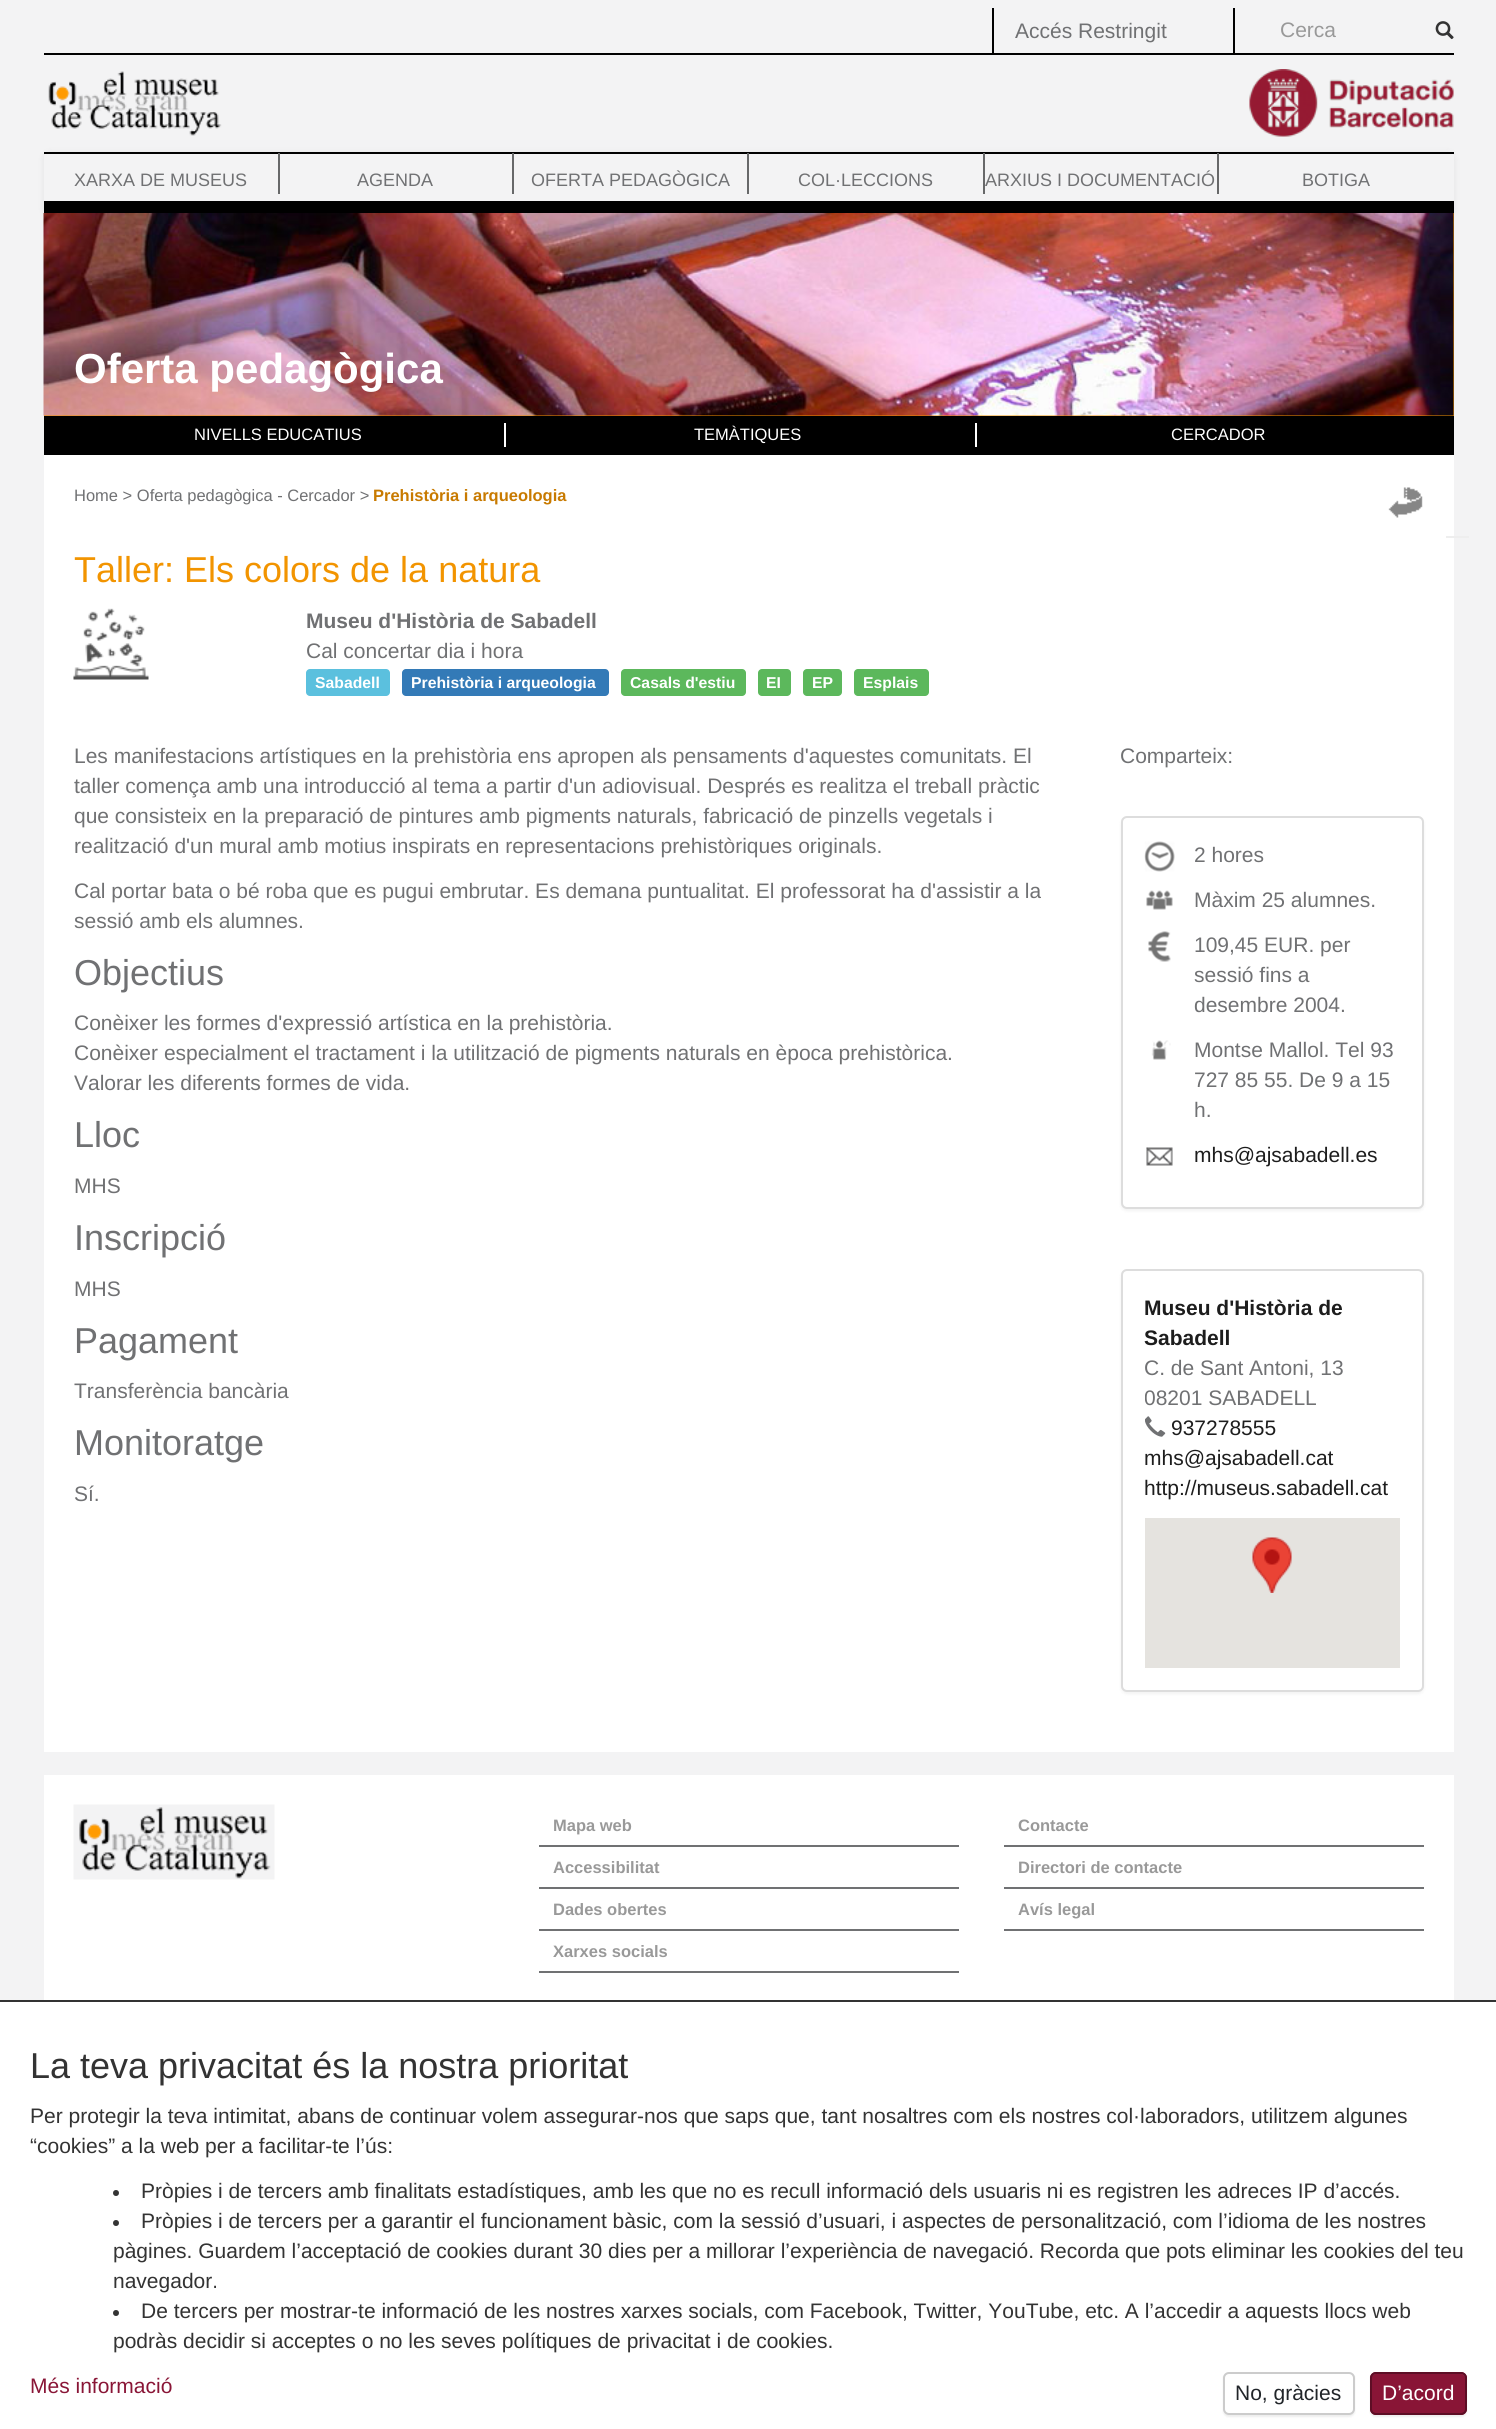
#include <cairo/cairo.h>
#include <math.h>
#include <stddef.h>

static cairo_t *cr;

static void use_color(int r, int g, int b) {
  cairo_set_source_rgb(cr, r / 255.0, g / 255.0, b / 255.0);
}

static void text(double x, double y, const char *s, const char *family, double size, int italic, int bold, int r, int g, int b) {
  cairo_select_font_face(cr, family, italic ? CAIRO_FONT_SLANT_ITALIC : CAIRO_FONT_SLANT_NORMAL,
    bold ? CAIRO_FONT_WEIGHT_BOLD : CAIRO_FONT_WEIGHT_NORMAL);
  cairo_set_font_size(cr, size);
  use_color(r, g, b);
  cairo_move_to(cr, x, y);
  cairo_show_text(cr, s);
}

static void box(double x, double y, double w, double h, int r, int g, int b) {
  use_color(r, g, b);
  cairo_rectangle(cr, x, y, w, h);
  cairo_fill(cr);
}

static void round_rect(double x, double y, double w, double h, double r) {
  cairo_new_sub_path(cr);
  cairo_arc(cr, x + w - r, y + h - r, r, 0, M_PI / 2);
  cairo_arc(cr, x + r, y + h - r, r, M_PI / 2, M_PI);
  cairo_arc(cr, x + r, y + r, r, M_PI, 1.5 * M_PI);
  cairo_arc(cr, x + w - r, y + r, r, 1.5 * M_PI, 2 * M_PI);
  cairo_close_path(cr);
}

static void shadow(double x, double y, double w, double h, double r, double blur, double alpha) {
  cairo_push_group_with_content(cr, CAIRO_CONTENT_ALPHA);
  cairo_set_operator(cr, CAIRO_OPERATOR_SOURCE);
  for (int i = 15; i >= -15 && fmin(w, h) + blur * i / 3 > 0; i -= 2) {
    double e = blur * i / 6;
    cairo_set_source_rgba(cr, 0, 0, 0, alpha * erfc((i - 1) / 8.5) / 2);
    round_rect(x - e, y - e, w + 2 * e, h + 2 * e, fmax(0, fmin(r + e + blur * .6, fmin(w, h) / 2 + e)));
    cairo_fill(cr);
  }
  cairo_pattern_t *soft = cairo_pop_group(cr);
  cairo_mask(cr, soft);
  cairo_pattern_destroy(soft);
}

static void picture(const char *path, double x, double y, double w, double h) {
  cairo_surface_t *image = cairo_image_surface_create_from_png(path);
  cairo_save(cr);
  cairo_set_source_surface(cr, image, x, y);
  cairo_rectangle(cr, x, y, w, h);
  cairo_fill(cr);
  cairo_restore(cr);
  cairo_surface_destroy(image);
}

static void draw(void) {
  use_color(243, 243, 244);
  cairo_paint(cr);
  box(992, 8, 2, 45, 0, 0, 0);
  box(1233, 8, 2, 45, 0, 0, 0);
  picture("img_01.png", 1435, 21, 19, 19);
  box(44, 53, 1410, 2, 0, 0, 0);
  picture("img_02.png", 48, 71, 174, 65);
  picture("img_03.png", 1249, 69, 205, 68);
  cairo_save(cr);
  cairo_set_fill_rule(cr, CAIRO_FILL_RULE_EVEN_ODD);
  cairo_new_path(cr);
  cairo_move_to(cr, 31, 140);
  cairo_line_to(cr, 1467, 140);
  cairo_line_to(cr, 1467, 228);
  cairo_line_to(cr, 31, 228);
  cairo_close_path(cr);
  cairo_move_to(cr, 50, 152);
  cairo_line_to(cr, 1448, 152);
  cairo_curve_to(cr, 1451.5, 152, 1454, 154.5, 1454, 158);
  cairo_line_to(cr, 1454, 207);
  cairo_curve_to(cr, 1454, 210.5, 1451.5, 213, 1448, 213);
  cairo_line_to(cr, 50, 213);
  cairo_curve_to(cr, 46.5, 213, 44, 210.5, 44, 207);
  cairo_line_to(cr, 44, 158);
  cairo_curve_to(cr, 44, 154.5, 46.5, 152, 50, 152);
  cairo_close_path(cr);
  cairo_clip(cr);
  use_color(0, 0, 0);
  shadow(44, 153, 1410, 62, 6, 4, 0.07);
  cairo_restore(cr);
  use_color(245, 245, 246);
  cairo_new_path(cr);
  cairo_move_to(cr, 50, 153);
  cairo_line_to(cr, 1448, 153);
  cairo_curve_to(cr, 1451, 153, 1454, 156, 1454, 159);
  cairo_curve_to(cr, 1454, 155, 1452, 152, 1448, 152);
  cairo_line_to(cr, 50, 152);
  cairo_curve_to(cr, 46, 152, 44, 155, 44, 159);
  cairo_curve_to(cr, 44, 156, 46, 153, 50, 153);
  cairo_close_path(cr);
  cairo_fill(cr);
  box(44, 152, 1410, 2, 0, 0, 0);
  box(44, 201, 1410, 12, 0, 0, 0);
  box(278, 153, 2, 41, 103, 104, 105);
  box(512, 153, 2, 41, 103, 104, 105);
  box(747, 153, 2, 41, 103, 104, 105);
  box(983, 153, 2, 41, 103, 104, 105);
  box(1217, 153, 2, 41, 103, 104, 105);
  box(44, 213, 1410, 203, 242, 148, 0);
  picture("img_04.png", 43, 213, 1411, 203);
  box(44, 416, 1410, 39, 0, 0, 0);
  box(504, 423, 2, 24, 255, 255, 255);
  box(975, 423, 2, 24, 255, 255, 255);
  box(44, 455, 1410, 1297, 255, 255, 255);
  picture("img_05.png", 1388, 487, 35, 31);
  picture("img_06.png", 73, 608, 76, 72);
  use_color(91, 192, 222);
  round_rect(306, 669, 84, 27, 4);
  cairo_fill(cr);
  use_color(51, 122, 183);
  round_rect(402, 669, 207, 27, 4);
  cairo_fill(cr);
  use_color(92, 184, 92);
  round_rect(621, 669, 125, 27, 4);
  cairo_fill(cr);
  round_rect(758, 669, 33, 27, 4);
  cairo_fill(cr);
  round_rect(803, 669, 39, 27, 4);
  cairo_fill(cr);
  round_rect(854, 669, 75, 27, 4);
  cairo_fill(cr);
  box(1446, 536, 23, 2, 238, 238, 238);
  use_color(0, 0, 0);
  shadow(1121, 818, 303, 393, 6, 1.5, 0.05);
  use_color(255, 255, 255);
  round_rect(1122, 817, 301, 391, 5);
  cairo_fill_preserve(cr);
  use_color(221, 221, 221);
  cairo_stroke(cr);
  picture("img_07.png", 1144, 841, 31, 31);
  picture("img_08.png", 1146, 890, 27, 20);
  picture("img_09.png", 1148, 931, 23, 31);
  picture("img_10.png", 1151, 1040, 20, 20);
  picture("img_11.png", 1146, 1147, 27, 19);
  use_color(0, 0, 0);
  shadow(1121, 1271, 303, 423, 6, 1.5, 0.05);
  use_color(255, 255, 255);
  round_rect(1122, 1270, 301, 421, 5);
  cairo_fill_preserve(cr);
  use_color(221, 221, 221);
  cairo_stroke(cr);
  picture("img_12.png", 1145, 1416, 21, 21);
  box(1145, 1518, 255, 150, 229, 227, 223);
  picture("img_13.png", 1252, 1537, 40, 56);
  box(44, 1775, 1410, 225, 255, 255, 255);
  picture("img_14.png", 73, 1804, 202, 76);
  box(539, 1845, 420, 2, 112, 113, 115);
  box(1004, 1845, 420, 2, 112, 113, 115);
  box(539, 1887, 420, 2, 112, 113, 115);
  box(1004, 1887, 420, 2, 112, 113, 115);
  box(539, 1929, 420, 2, 112, 113, 115);
  box(1004, 1929, 420, 2, 112, 113, 115);
  box(539, 1971, 420, 2, 112, 113, 115);
  box(0, 2002, 1496, 427, 255, 255, 255);
  box(0, 2000, 1496, 2, 51, 51, 51);
  cairo_arc(cr, 116, 2193, 3, 0, 2 * M_PI);
  cairo_fill(cr);
  cairo_arc(cr, 116, 2223, 3, 0, 2 * M_PI);
  cairo_fill(cr);
  cairo_arc(cr, 116, 2313, 3, 0, 2 * M_PI);
  cairo_fill(cr);
  use_color(0, 0, 0);
  shadow(1223, 2373, 132, 44, 6, 1, 0.07);
  use_color(255, 255, 255);
  round_rect(1224, 2373, 130, 41, 5);
  cairo_fill_preserve(cr);
  use_color(204, 204, 204);
  cairo_stroke(cr);
  use_color(0, 0, 0);
  shadow(1370, 2373, 97, 44, 6, 1, 0.07);
  use_color(137, 21, 54);
  round_rect(1370, 2372, 97, 43, 6);
  cairo_fill(cr);
  use_color(155, 56, 84);
  cairo_new_path(cr);
  cairo_move_to(cr, 1376, 2374);
  cairo_line_to(cr, 1461, 2374);
  cairo_curve_to(cr, 1463, 2374, 1466, 2377, 1466, 2379);
  cairo_curve_to(cr, 1466, 2369, 1452, 2373, 1447, 2373);
  cairo_line_to(cr, 1390, 2373);
  cairo_curve_to(cr, 1385, 2373, 1371, 2369, 1371, 2379);
  cairo_curve_to(cr, 1371, 2377, 1373, 2374, 1376, 2374);
  cairo_close_path(cr);
  cairo_fill(cr);
  round_rect(1371, 2373, 95, 41, 5);
  use_color(93, 14, 37);
  cairo_stroke(cr);
  text(1015, 38, "Accés Restringit", "Liberation Sans", 21, 0, 0, 112, 113, 115);
  text(1280, 37, "Cerca", "Liberation Sans", 21, 0, 0, 153, 153, 153);
  text(74, 186, "XARXA DE MUSEUS", "Liberation Sans", 18, 0, 0, 112, 113, 115);
  text(357, 186, "AGENDA", "Liberation Sans", 18, 0, 0, 112, 113, 115);
  text(531, 186, "OFERTA PEDAGÒGICA", "Liberation Sans", 18, 0, 0, 112, 113, 115);
  text(798, 186, "COL·LECCIONS", "Liberation Sans", 18, 0, 0, 112, 113, 115);
  text(985, 186, "ARXIUS I DOCUMENTACIÓ", "Liberation Sans", 18, 0, 0, 112, 113, 115);
  text(1302, 186, "BOTIGA", "Liberation Sans", 18, 0, 0, 112, 113, 115);
  text(74, 383, "Oferta pedagògica", "Liberation Sans", 42, 0, 1, 255, 255, 255);
  text(194, 440, "NIVELLS EDUCATIUS", "Liberation Sans", 16.5, 0, 0, 255, 255, 255);
  text(694, 440, "TEMÀTIQUES", "Liberation Sans", 16.5, 0, 0, 255, 255, 255);
  text(1171, 440, "CERCADOR", "Liberation Sans", 16.5, 0, 0, 255, 255, 255);
  text(74, 501, "Home > Oferta pedagògica - Cercador >", "Liberation Sans", 16.5, 0, 0, 112, 113, 115);
  text(373, 501, "Prehistòria i arqueologia", "Liberation Sans", 16.5, 0, 1, 200, 122, 0);
  text(74, 582, "Taller: Els colors de la natura", "Liberation Sans", 36, 0, 0, 242, 148, 0);
  text(306, 628, "Museu d'Història de Sabadell", "Liberation Sans", 21, 0, 1, 112, 113, 115);
  text(306, 658, "Cal concertar dia i hora", "Liberation Sans", 21, 0, 0, 112, 113, 115);
  text(315, 688, "Sabadell", "Liberation Sans", 15.75, 0, 1, 255, 255, 255);
  text(411, 688, "Prehistòria i arqueologia", "Liberation Sans", 15.75, 0, 1, 255, 255, 255);
  text(630, 688, "Casals d'estiu", "Liberation Sans", 15.75, 0, 1, 255, 255, 255);
  text(766, 688, "EI", "Liberation Sans", 15.75, 0, 1, 255, 255, 255);
  text(812, 688, "EP", "Liberation Sans", 15.75, 0, 1, 255, 255, 255);
  text(863, 688, "Esplais", "Liberation Sans", 15.75, 0, 1, 255, 255, 255);
  text(74, 763, "Les manifestacions artístiques en la prehistòria ens apropen als pensaments d'aquestes comunitats. El", "Liberation Sans", 21, 0, 0, 112, 113, 115);
  text(74, 793, "taller comença amb una introducció al tema a partir d'un adiovisual. Després es realitza el treball pràctic", "Liberation Sans", 21, 0, 0, 112, 113, 115);
  text(74, 823, "que consisteix en la preparació de pintures amb pigments naturals, fabricació de pinzells vegetals i", "Liberation Sans", 21, 0, 0, 112, 113, 115);
  text(74, 853, "realització d'un mural amb motius inspirats en representacions prehistòriques originals.", "Liberation Sans", 21, 0, 0, 112, 113, 115);
  text(74, 898, "Cal portar bata o bé roba que es pugui embrutar. Es demana puntualitat. El professorat ha d'assistir a la", "Liberation Sans", 21, 0, 0, 112, 113, 115);
  text(74, 928, "sessió amb els alumnes.", "Liberation Sans", 21, 0, 0, 112, 113, 115);
  text(74, 985, "Objectius", "Liberation Sans", 36, 0, 0, 112, 113, 115);
  text(74, 1030, "Conèixer les formes d'expressió artística en la prehistòria.", "Liberation Sans", 21, 0, 0, 112, 113, 115);
  text(74, 1060, "Conèixer especialment el tractament i la utilització de pigments naturals en època prehistòrica.", "Liberation Sans", 21, 0, 0, 112, 113, 115);
  text(74, 1090, "Valorar les diferents formes de vida.", "Liberation Sans", 21, 0, 0, 112, 113, 115);
  text(74, 1147, "Lloc", "Liberation Sans", 36, 0, 0, 112, 113, 115);
  text(74, 1193, "MHS", "Liberation Sans", 21, 0, 0, 112, 113, 115);
  text(74, 1250, "Inscripció", "Liberation Sans", 36, 0, 0, 112, 113, 115);
  text(74, 1296, "MHS", "Liberation Sans", 21, 0, 0, 112, 113, 115);
  text(74, 1353, "Pagament", "Liberation Sans", 36, 0, 0, 112, 113, 115);
  text(74, 1398, "Transferència bancària", "Liberation Sans", 21, 0, 0, 112, 113, 115);
  text(74, 1455, "Monitoratge", "Liberation Sans", 36, 0, 0, 112, 113, 115);
  text(74, 1501, "Sí.", "Liberation Sans", 21, 0, 0, 112, 113, 115);
  text(1120, 763, "Comparteix:", "Liberation Sans", 21, 0, 0, 112, 113, 115);
  text(1194, 862, "2 hores", "Liberation Sans", 21, 0, 0, 112, 113, 115);
  text(1194, 907, "Màxim 25 alumnes.", "Liberation Sans", 21, 0, 0, 112, 113, 115);
  text(1194, 952, "109,45 EUR. per", "Liberation Sans", 21, 0, 0, 112, 113, 115);
  text(1194, 982, "sessió fins a", "Liberation Sans", 21, 0, 0, 112, 113, 115);
  text(1194, 1012, "desembre 2004.", "Liberation Sans", 21, 0, 0, 112, 113, 115);
  text(1194, 1057, "Montse Mallol. Tel 93", "Liberation Sans", 21, 0, 0, 112, 113, 115);
  text(1194, 1087, "727 85 55. De 9 a 15", "Liberation Sans", 21, 0, 0, 112, 113, 115);
  text(1194, 1117, "h.", "Liberation Sans", 21, 0, 0, 112, 113, 115);
  text(1194, 1162, "mhs@ajsabadell.es", "Liberation Sans", 21, 0, 0, 29, 29, 29);
  text(1144, 1315, "Museu d'Història de", "Liberation Sans", 21, 0, 1, 29, 29, 29);
  text(1144, 1345, "Sabadell", "Liberation Sans", 21, 0, 1, 29, 29, 29);
  cairo_save(cr);
  cairo_rectangle(cr, 1145, 1293, 255, 375);
  cairo_clip(cr);
  text(1144, 1375, "C. de Sant Antoni, 13", "Liberation Sans", 21, 0, 0, 112, 113, 115);
  text(1144, 1405, "08201 SABADELL", "Liberation Sans", 21, 0, 0, 112, 113, 115);
  cairo_restore(cr);
  text(1171, 1435, "937278555", "Liberation Sans", 21, 0, 0, 29, 29, 29);
  text(1144, 1465, "mhs@ajsabadell.cat", "Liberation Sans", 21, 0, 0, 29, 29, 29);
  text(1144, 1495, "http://museus.sabadell.cat", "Liberation Sans", 21, 0, 0, 29, 29, 29);
  text(553, 1831, "Mapa web", "Liberation Sans", 16.5, 0, 1, 153, 153, 153);
  text(1018, 1831, "Contacte", "Liberation Sans", 16.5, 0, 1, 153, 153, 153);
  text(553, 1873, "Accessibilitat", "Liberation Sans", 16.5, 0, 1, 153, 153, 153);
  text(1018, 1873, "Directori de contacte", "Liberation Sans", 16.5, 0, 1, 153, 153, 153);
  text(553, 1915, "Dades obertes", "Liberation Sans", 16.5, 0, 1, 153, 153, 153);
  text(1018, 1915, "Avís legal", "Liberation Sans", 16.5, 0, 1, 153, 153, 153);
  text(553, 1957, "Xarxes socials", "Liberation Sans", 16.5, 0, 1, 153, 153, 153);
  text(30, 2078, "La teva privacitat és la nostra prioritat", "Liberation Sans", 36, 0, 0, 51, 51, 51);
  text(30, 2123, "Per protegir la teva intimitat, abans de continuar volem assegurar-nos que saps que, tant nosaltres com els nostres col·laboradors, utilitzem algunes", "Liberation Sans", 21, 0, 0, 51, 51, 51);
  text(30, 2153, "“cookies” a la web per a facilitar-te l’ús:", "Liberation Sans", 21, 0, 0, 51, 51, 51);
  text(141, 2198, "Pròpies i de tercers amb finalitats estadístiques, amb les que no es recull informació dels usuaris ni es registren les adreces IP d’accés.", "Liberation Sans", 21, 0, 0, 51, 51, 51);
  text(141, 2228, "Pròpies i de tercers per a garantir el funcionament bàsic, com la sessió d’usuari, i aspectes de personalització, com l’idioma de les nostres", "Liberation Sans", 21, 0, 0, 51, 51, 51);
  text(113, 2258, "pàgines. Guardem l’acceptació de cookies durant 30 dies per a millorar l’experiència de navegació. Recorda que pots eliminar les cookies del teu", "Liberation Sans", 21, 0, 0, 51, 51, 51);
  text(113, 2288, "navegador.", "Liberation Sans", 21, 0, 0, 51, 51, 51);
  text(141, 2318, "De tercers per mostrar-te informació de les nostres xarxes socials, com Facebook, Twitter, YouTube, etc. A l’accedir a aquests llocs web", "Liberation Sans", 21, 0, 0, 51, 51, 51);
  text(113, 2348, "podràs decidir si acceptes o no les seves polítiques de privacitat i de cookies.", "Liberation Sans", 21, 0, 0, 51, 51, 51);
  text(30, 2393, "Més informació", "Liberation Sans", 21, 0, 0, 137, 21, 54);
  text(1235, 2400, "No, gràcies", "Liberation Sans", 21, 0, 0, 33, 37, 41);
  text(1382, 2400, "D’acord", "Liberation Sans", 21, 0, 0, 255, 255, 255);
}

int main(void) {
  cairo_surface_t *surface = cairo_image_surface_create(CAIRO_FORMAT_RGB24, 1496, 2429);
  cr = cairo_create(surface);
  cairo_font_options_t *options = cairo_font_options_create();
  cairo_font_options_set_hint_metrics(options, CAIRO_HINT_METRICS_OFF);
  cairo_font_options_set_hint_style(options, CAIRO_HINT_STYLE_NONE);
  cairo_set_font_options(cr, options);
  cairo_set_miter_limit(cr, 4);
  draw();
  cairo_surface_write_to_png(surface, "out.png");
  cairo_font_options_destroy(options);
  cairo_destroy(cr);
  cairo_surface_destroy(surface);
  return 0;
}
